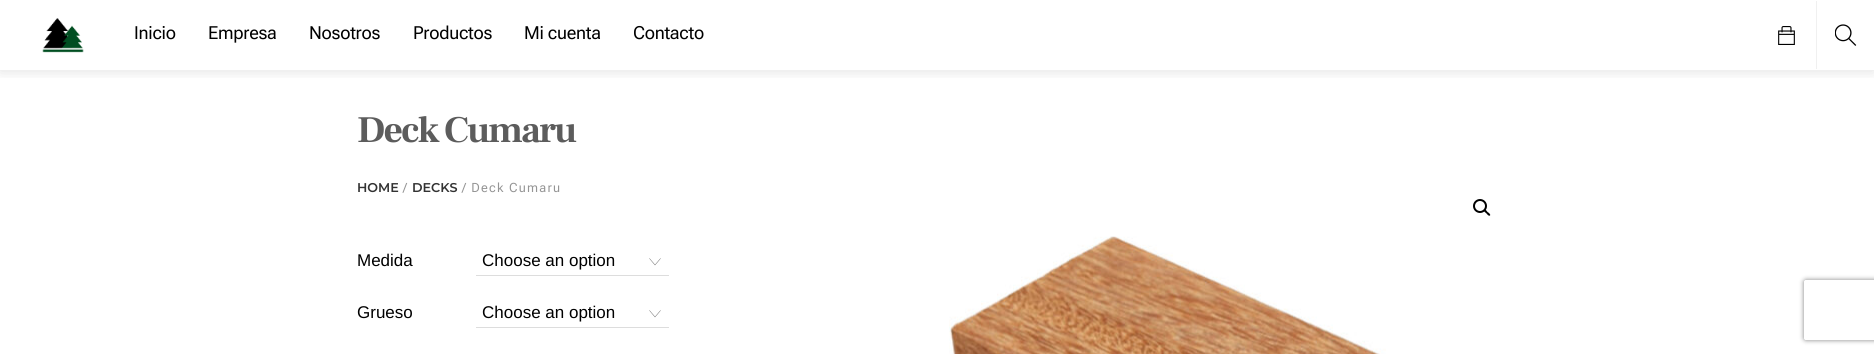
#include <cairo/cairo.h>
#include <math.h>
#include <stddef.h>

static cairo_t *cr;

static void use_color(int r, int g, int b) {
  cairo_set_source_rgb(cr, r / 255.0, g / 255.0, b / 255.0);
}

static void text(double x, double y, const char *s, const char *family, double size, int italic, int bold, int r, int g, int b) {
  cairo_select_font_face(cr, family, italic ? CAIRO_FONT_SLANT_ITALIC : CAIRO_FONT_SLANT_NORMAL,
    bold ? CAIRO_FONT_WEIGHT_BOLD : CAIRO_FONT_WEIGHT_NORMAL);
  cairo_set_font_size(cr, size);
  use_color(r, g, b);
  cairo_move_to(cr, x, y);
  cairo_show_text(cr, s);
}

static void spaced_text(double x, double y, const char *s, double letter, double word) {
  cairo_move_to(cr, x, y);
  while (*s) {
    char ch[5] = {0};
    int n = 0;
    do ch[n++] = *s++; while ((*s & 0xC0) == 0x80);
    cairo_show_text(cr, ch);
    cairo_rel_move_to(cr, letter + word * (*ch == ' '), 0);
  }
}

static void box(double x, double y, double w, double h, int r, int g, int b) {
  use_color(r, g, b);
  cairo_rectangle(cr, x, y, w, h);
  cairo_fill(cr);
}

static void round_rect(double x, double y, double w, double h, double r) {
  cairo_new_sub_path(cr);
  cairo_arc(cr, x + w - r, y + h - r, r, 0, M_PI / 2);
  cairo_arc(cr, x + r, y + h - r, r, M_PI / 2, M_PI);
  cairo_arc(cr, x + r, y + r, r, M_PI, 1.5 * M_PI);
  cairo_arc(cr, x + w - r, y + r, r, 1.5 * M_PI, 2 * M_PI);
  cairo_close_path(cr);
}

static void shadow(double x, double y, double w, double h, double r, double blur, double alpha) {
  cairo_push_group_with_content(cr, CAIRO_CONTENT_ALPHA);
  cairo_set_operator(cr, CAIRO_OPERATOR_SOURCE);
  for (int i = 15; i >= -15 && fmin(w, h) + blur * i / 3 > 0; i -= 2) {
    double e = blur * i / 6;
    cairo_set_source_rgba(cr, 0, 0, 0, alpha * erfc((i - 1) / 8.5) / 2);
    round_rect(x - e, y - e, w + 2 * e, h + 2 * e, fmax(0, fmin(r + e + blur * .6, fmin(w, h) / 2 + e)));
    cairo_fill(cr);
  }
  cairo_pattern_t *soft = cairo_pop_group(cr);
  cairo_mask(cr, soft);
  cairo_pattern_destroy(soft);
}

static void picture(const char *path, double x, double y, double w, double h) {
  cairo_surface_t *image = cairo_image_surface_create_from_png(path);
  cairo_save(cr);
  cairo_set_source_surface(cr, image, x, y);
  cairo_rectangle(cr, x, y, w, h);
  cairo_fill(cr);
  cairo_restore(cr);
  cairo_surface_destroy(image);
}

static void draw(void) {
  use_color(255, 255, 255);
  cairo_paint(cr);
  cairo_save(cr);
  cairo_rectangle(cr, 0, 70, 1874, 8);
  cairo_clip(cr);
  use_color(0, 0, 0);
  shadow(0, 1, 1874, 70, 0, 7.5, 0.12);
  cairo_restore(cr);
  picture("img_01.png", 42, 18, 42, 35);
  picture("img_02.png", 1778, 26, 17, 19);
  box(1816, 1, 1, 68, 240, 240, 240);
  picture("img_03.png", 1835, 24, 22, 22);
  cairo_new_path(cr);
  cairo_move_to(cr, 649.5, 258.5);
  cairo_line_to(cr, 655, 265);
  cairo_line_to(cr, 660.5, 258.5);
  use_color(83, 83, 83);
  cairo_set_line_width(cr, 0.4);
  cairo_set_line_cap(cr, CAIRO_LINE_CAP_ROUND);
  cairo_stroke(cr);
  box(476, 275, 193, 1, 221, 221, 221);
  cairo_new_path(cr);
  cairo_move_to(cr, 649.5, 310.5);
  cairo_line_to(cr, 655, 317);
  cairo_line_to(cr, 660.5, 310.5);
  use_color(83, 83, 83);
  cairo_stroke(cr);
  box(476, 327, 193, 1, 221, 221, 221);
  cairo_arc(cr, 1480, 206, 6, 0, 2 * M_PI);
  use_color(0, 0, 0);
  cairo_set_line_width(cr, 2);
  cairo_set_line_cap(cr, CAIRO_LINE_CAP_BUTT);
  cairo_stroke(cr);
  cairo_new_path(cr);
  cairo_move_to(cr, 1484, 210);
  cairo_curve_to(cr, 1485.5, 208.5, 1487, 211.5, 1487.5, 212);
  cairo_curve_to(cr, 1488.5, 212.5, 1491, 214.5, 1490, 215.5);
  cairo_curve_to(cr, 1488.5, 216.5, 1487, 214, 1486.5, 213.5);
  cairo_curve_to(cr, 1485.5, 212.5, 1483, 211, 1484, 210);
  cairo_close_path(cr);
  cairo_fill(cr);
  picture("img_04.png", 949, 236, 437, 118);
  cairo_save(cr);
  cairo_set_fill_rule(cr, CAIRO_FILL_RULE_EVEN_ODD);
  cairo_new_path(cr);
  cairo_move_to(cr, 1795, 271);
  cairo_line_to(cr, 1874, 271);
  cairo_line_to(cr, 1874, 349);
  cairo_line_to(cr, 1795, 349);
  cairo_close_path(cr);
  cairo_move_to(cr, 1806, 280);
  cairo_line_to(cr, 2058, 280);
  cairo_curve_to(cr, 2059, 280, 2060, 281, 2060, 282);
  cairo_line_to(cr, 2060, 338);
  cairo_curve_to(cr, 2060, 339, 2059, 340, 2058, 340);
  cairo_line_to(cr, 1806, 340);
  cairo_curve_to(cr, 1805, 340, 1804, 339, 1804, 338);
  cairo_line_to(cr, 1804, 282);
  cairo_curve_to(cr, 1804, 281, 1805, 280, 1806, 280);
  cairo_close_path(cr);
  cairo_clip(cr);
  use_color(128, 128, 128);
  shadow(1804, 280, 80, 60, 2, 2.5, 1);
  cairo_restore(cr);
  cairo_select_font_face(cr, "Roboto Flex", CAIRO_FONT_SLANT_NORMAL, CAIRO_FONT_WEIGHT_NORMAL);
  cairo_set_font_size(cr, 18);
  spaced_text(134, 39, "Inicio", -0.25, 0);
  spaced_text(208, 39, "Empresa", -0.25, 0);
  spaced_text(309, 39, "Nosotros", -0.25, 0);
  spaced_text(413, 39, "Productos", -0.25, 0);
  spaced_text(524, 39, "Mi cuenta", -0.25, 0);
  spaced_text(633, 39, "Contacto", -0.25, 0);
  cairo_select_font_face(cr, "Frank Ruhl Libre", CAIRO_FONT_SLANT_NORMAL, CAIRO_FONT_WEIGHT_BOLD);
  cairo_set_font_size(cr, 37.5);
  use_color(92, 92, 92);
  spaced_text(357, 142, "Deck Cumaru", -1.9, 0);
  text(357, 192, "HOME", "Montserrat SemiBold", 12.75, 0, 0, 51, 51, 51);
  cairo_select_font_face(cr, "Roboto Flex", CAIRO_FONT_SLANT_NORMAL, CAIRO_FONT_WEIGHT_NORMAL);
  use_color(149, 149, 149);
  spaced_text(403, 192, "/", 1.25, 0);
  text(412, 192, "DECKS", "Montserrat SemiBold", 12.75, 0, 0, 51, 51, 51);
  cairo_select_font_face(cr, "Roboto Flex", CAIRO_FONT_SLANT_NORMAL, CAIRO_FONT_WEIGHT_NORMAL);
  use_color(149, 149, 149);
  spaced_text(462, 192, "/ Deck Cumaru", 1.25, 0);
  text(357, 266, "Medida", "Liberation Sans", 17, 0, 0, 0, 0, 0);
  text(482, 266, "Choose an option", "Liberation Sans", 17, 0, 0, 0, 0, 0);
  text(357, 318, "Grueso", "Liberation Sans", 17, 0, 0, 0, 0, 0);
  text(482, 318, "Choose an option", "Liberation Sans", 17, 0, 0, 0, 0, 0);
}

int main(void) {
  cairo_surface_t *surface = cairo_image_surface_create(CAIRO_FORMAT_RGB24, 1874, 354);
  cr = cairo_create(surface);
  cairo_font_options_t *options = cairo_font_options_create();
  cairo_font_options_set_hint_metrics(options, CAIRO_HINT_METRICS_OFF);
  cairo_font_options_set_hint_style(options, CAIRO_HINT_STYLE_NONE);
  cairo_set_font_options(cr, options);
  cairo_set_miter_limit(cr, 4);
  draw();
  cairo_surface_write_to_png(surface, "out.png");
  cairo_font_options_destroy(options);
  cairo_destroy(cr);
  cairo_surface_destroy(surface);
  return 0;
}
